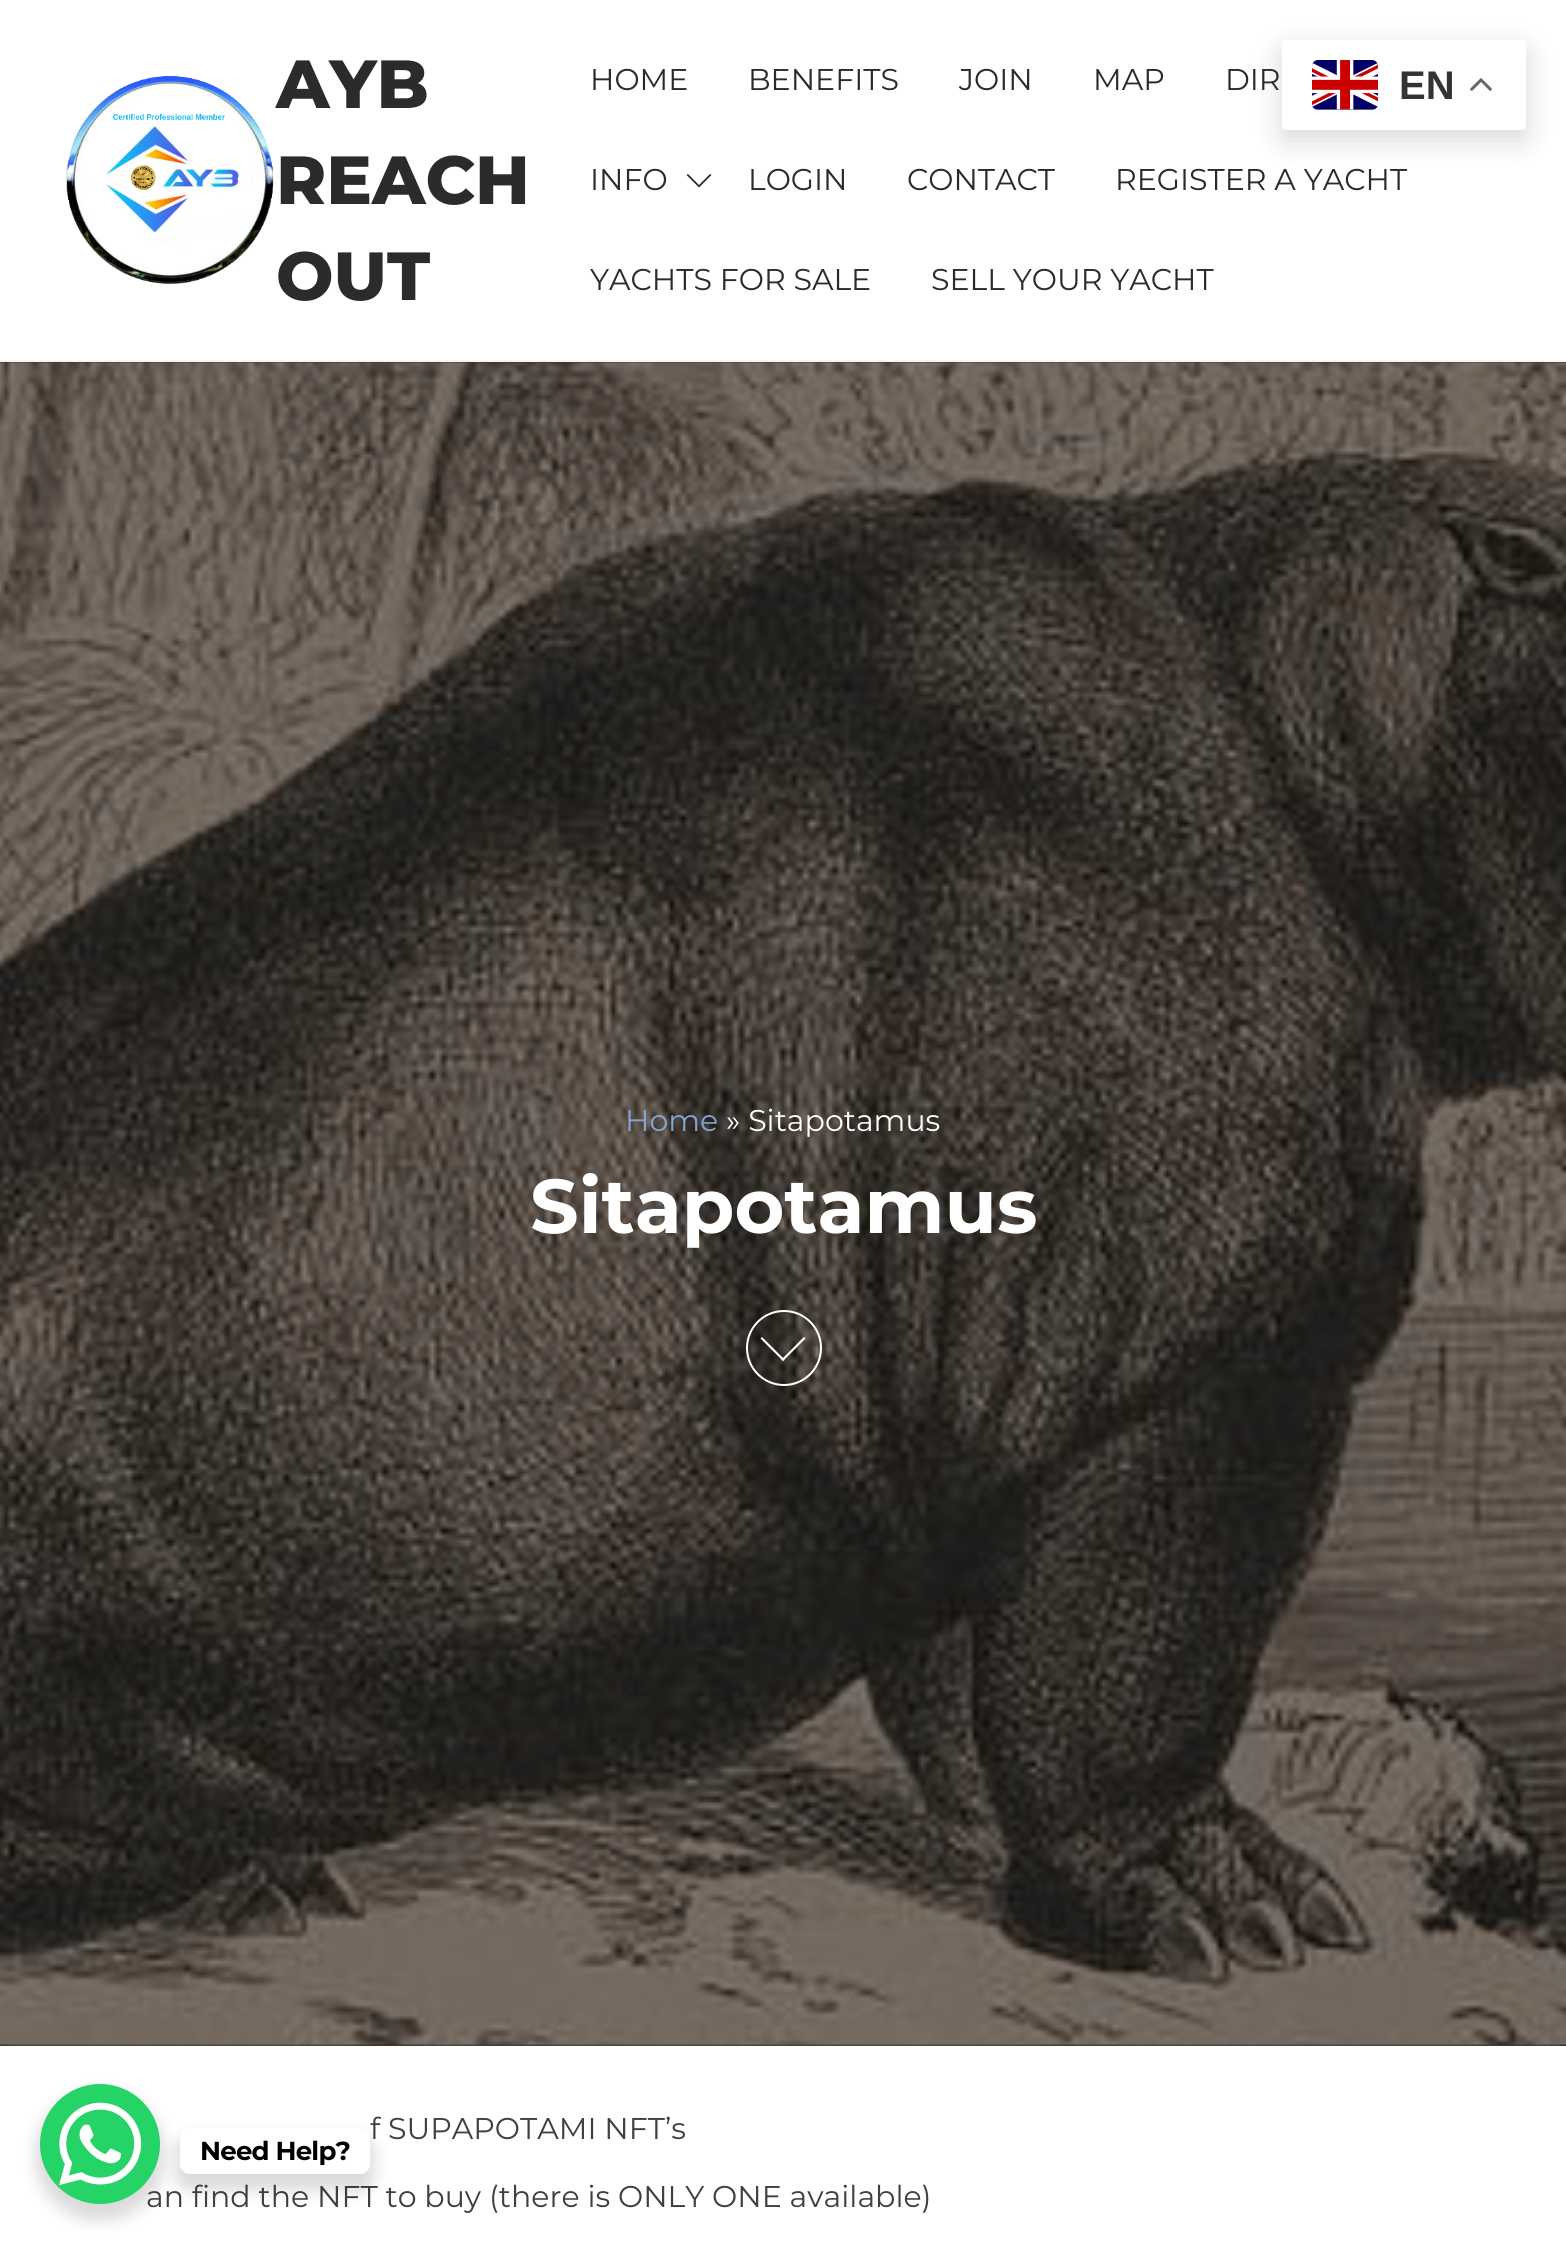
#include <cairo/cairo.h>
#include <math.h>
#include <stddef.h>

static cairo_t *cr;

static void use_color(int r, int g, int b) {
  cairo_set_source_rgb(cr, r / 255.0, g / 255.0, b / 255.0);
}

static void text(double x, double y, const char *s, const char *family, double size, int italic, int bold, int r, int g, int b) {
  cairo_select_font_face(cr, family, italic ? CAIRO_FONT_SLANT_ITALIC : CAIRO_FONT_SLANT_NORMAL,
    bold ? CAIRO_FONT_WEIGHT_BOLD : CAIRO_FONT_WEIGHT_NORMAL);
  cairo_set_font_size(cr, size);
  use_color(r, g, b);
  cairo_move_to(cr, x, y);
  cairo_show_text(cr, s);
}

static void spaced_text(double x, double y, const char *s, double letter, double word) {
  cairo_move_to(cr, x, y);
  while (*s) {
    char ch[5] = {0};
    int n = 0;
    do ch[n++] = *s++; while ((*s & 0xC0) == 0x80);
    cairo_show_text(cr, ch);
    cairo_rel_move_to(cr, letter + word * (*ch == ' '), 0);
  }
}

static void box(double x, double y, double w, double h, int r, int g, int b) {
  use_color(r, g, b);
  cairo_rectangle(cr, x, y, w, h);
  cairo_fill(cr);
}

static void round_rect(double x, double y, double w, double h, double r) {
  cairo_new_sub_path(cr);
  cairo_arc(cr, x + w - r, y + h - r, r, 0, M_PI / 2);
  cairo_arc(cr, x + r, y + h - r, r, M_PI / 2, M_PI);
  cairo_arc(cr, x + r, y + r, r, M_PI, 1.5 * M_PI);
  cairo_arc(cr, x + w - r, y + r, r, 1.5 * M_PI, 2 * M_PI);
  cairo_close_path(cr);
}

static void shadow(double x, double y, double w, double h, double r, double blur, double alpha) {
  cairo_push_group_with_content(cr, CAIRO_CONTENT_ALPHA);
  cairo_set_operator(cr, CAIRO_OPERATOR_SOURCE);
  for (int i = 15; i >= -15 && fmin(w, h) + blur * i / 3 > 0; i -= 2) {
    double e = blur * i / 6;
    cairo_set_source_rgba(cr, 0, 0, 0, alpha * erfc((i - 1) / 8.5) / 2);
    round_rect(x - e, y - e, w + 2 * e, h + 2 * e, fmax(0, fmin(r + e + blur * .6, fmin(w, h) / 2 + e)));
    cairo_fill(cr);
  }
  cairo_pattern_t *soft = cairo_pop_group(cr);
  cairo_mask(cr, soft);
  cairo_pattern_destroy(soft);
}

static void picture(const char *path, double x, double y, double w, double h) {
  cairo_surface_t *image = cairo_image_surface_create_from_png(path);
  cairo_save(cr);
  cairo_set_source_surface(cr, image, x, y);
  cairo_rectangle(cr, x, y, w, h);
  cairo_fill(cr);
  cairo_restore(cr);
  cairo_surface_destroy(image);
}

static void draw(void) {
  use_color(255, 255, 255);
  cairo_paint(cr);
  box(0, 360, 1566, 2, 246, 246, 246);
  picture("img_01.png", 66, 76, 208, 208);
  use_color(43, 43, 43);
  cairo_new_path(cr);
  cairo_move_to(cr, 688, 174);
  cairo_line_to(cr, 686.5, 175);
  cairo_line_to(cr, 699, 187.5);
  cairo_line_to(cr, 711.5, 175);
  cairo_line_to(cr, 710, 174);
  cairo_line_to(cr, 699, 185);
  cairo_close_path(cr);
  cairo_fill(cr);
  box(0, 362, 1566, 1684, 30, 30, 30);
  picture("img_02.png", 0, 362, 1566, 1684);
  picture("img_03.png", 0, 362, 1566, 1683);
  cairo_arc(cr, 784, 1348, 37, 0, 2 * M_PI);
  use_color(255, 255, 255);
  cairo_stroke(cr);
  cairo_new_path(cr);
  cairo_move_to(cr, 781.5, 1359.5);
  cairo_line_to(cr, 804, 1337);
  cairo_line_to(cr, 805.5, 1338.5);
  cairo_line_to(cr, 783, 1361);
  cairo_close_path(cr);
  cairo_fill(cr);
  cairo_new_path(cr);
  cairo_move_to(cr, 760.5, 1338.5);
  cairo_line_to(cr, 762, 1337);
  cairo_line_to(cr, 784.5, 1359.5);
  cairo_line_to(cr, 783, 1361);
  cairo_close_path(cr);
  cairo_fill(cr);
  use_color(0, 0, 0);
  shadow(1282, 50, 244, 90, 4, 15, 0.15);
  use_color(255, 255, 255);
  round_rect(1282, 40, 244, 90, 4);
  cairo_fill(cr);
  picture("img_04.png", 1312, 60, 66, 50);
  picture("img_05.png", 1470, 78, 22, 13);
  use_color(0, 0, 0);
  shadow(36, 2092, 128, 128, 64, 8, 0.15);
  text(276, 108, "AYB", "Montserrat ExtraBold", 68, 0, 0, 43, 43, 43);
  text(276, 204, "REACH", "Montserrat ExtraBold", 68, 0, 0, 43, 43, 43);
  text(276, 300, "OUT", "Montserrat ExtraBold", 68, 0, 0, 43, 43, 43);
  text(590, 90, "HOME", "Montserrat", 30, 0, 0, 43, 43, 43);
  text(748, 90, "BENEFITS", "Montserrat", 30, 0, 0, 43, 43, 43);
  text(959, 90, "JOIN", "Montserrat", 30, 0, 0, 43, 43, 43);
  text(1093, 90, "MAP", "Montserrat", 30, 0, 0, 43, 43, 43);
  text(1225, 90, "DIR", "Montserrat", 30, 0, 0, 43, 43, 43);
  text(590, 190, "INFO", "Montserrat", 30, 0, 0, 43, 43, 43);
  text(748, 190, "LOGIN", "Montserrat", 30, 0, 0, 43, 43, 43);
  text(907, 190, "CONTACT", "Montserrat", 30, 0, 0, 43, 43, 43);
  text(1115, 190, "REGISTER A YACHT", "Montserrat", 30, 0, 0, 43, 43, 43);
  text(590, 290, "YACHTS FOR SALE", "Montserrat", 30, 0, 0, 43, 43, 43);
  text(931, 290, "SELL YOUR YACHT", "Montserrat", 30, 0, 0, 43, 43, 43);
  text(625, 1131, "Home", "Montserrat", 30, 0, 0, 132, 164, 209);
  text(726, 1131, "» Sitapotamus", "Montserrat", 30, 0, 0, 255, 255, 255);
  text(530, 1233, "Sitapotamus", "Montserrat", 76.25, 0, 1, 255, 255, 255);
  text(370, 2139, "f SUPAPOTAMI NFT’s", "Montserrat", 30, 0, 0, 64, 64, 64);
  text(146, 2207, "an find the NFT to buy (there is ONLY ONE available)", "Montserrat", 30, 0, 0, 64, 64, 64);
  text(1399, 99, "EN", "Liberation Sans", 40, 0, 1, 51, 51, 51);
  use_color(37, 211, 102);
  cairo_new_path(cr);
  cairo_arc(cr, 100, 2144, 60, 0, 2 * M_PI);
  cairo_fill(cr);
  picture("img_06.png", 59, 2102, 83, 84);
  use_color(0, 0, 0);
  shadow(176, 2136, 198, 54, 14, 8, 0.15);
  use_color(255, 255, 255);
  round_rect(180, 2128, 190, 46, 10);
  cairo_fill(cr);
  cairo_select_font_face(cr, "Montserrat", CAIRO_FONT_SLANT_NORMAL, CAIRO_FONT_WEIGHT_BOLD);
  cairo_set_font_size(cr, 26);
  use_color(0, 0, 0);
  spaced_text(200, 2160, "Need Help?", -0.75, 0);
}

int main(void) {
  cairo_surface_t *surface = cairo_image_surface_create(CAIRO_FORMAT_RGB24, 1566, 2244);
  cr = cairo_create(surface);
  cairo_font_options_t *options = cairo_font_options_create();
  cairo_font_options_set_hint_metrics(options, CAIRO_HINT_METRICS_OFF);
  cairo_font_options_set_hint_style(options, CAIRO_HINT_STYLE_NONE);
  cairo_set_font_options(cr, options);
  cairo_set_miter_limit(cr, 4);
  draw();
  cairo_surface_write_to_png(surface, "out.png");
  cairo_font_options_destroy(options);
  cairo_destroy(cr);
  cairo_surface_destroy(surface);
  return 0;
}
